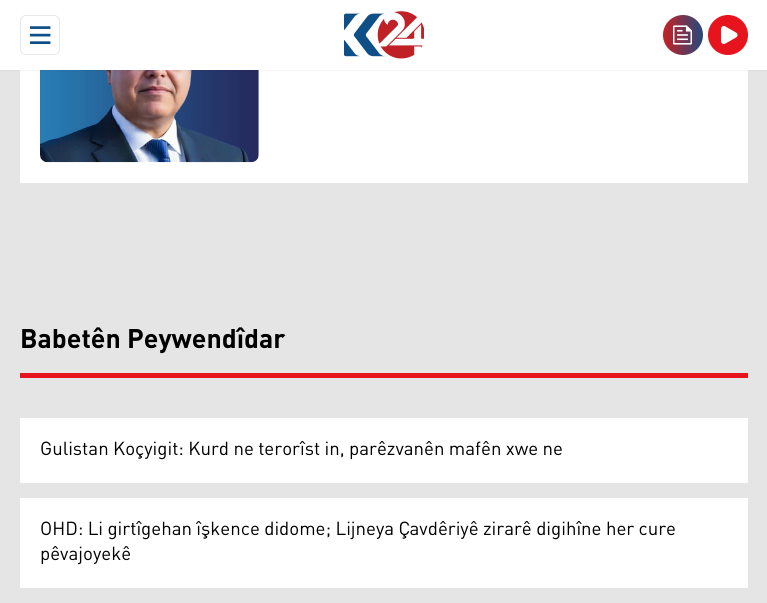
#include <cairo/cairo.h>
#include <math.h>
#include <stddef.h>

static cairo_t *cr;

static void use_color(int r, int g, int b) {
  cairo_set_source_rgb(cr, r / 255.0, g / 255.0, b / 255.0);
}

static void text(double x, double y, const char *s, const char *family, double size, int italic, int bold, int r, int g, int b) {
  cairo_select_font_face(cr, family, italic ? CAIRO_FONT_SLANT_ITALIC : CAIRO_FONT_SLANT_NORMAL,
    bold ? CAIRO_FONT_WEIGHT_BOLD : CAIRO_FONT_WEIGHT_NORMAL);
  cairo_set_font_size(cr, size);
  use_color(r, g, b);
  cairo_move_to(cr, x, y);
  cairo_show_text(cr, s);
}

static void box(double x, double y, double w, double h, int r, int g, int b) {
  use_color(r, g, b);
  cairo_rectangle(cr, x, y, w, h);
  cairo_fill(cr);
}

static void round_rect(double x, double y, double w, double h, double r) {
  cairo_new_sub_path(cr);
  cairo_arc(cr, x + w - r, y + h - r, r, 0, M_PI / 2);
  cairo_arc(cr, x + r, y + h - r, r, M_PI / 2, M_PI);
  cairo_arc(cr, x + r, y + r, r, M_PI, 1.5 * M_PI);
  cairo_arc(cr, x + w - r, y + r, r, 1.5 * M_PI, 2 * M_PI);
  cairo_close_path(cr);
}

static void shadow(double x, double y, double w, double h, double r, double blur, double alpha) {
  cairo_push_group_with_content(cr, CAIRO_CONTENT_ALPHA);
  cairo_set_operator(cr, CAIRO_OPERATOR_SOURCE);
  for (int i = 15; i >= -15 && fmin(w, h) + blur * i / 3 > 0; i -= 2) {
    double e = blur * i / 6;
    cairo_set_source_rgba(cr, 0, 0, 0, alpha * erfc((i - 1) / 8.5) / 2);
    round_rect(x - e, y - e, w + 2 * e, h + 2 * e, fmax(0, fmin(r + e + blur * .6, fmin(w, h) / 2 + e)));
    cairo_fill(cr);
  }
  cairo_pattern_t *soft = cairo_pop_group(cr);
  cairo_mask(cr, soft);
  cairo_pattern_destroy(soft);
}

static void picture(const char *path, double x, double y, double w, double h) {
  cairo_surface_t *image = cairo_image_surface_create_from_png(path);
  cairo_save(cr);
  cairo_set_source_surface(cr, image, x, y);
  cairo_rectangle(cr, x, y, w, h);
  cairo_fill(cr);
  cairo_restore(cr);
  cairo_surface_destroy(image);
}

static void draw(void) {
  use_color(229, 229, 229);
  cairo_paint(cr);
  box(20, 70, 728, 113, 255, 255, 255);
  picture("img_04.png", 40, 70, 219, 93);
  use_color(0, 0, 0);
  shadow(0, 1, 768, 70, 0, 1, 0.05);
  box(0, 0, 767, 70, 255, 255, 255);
  picture("img_01.png", 20, 15, 40, 40);
  picture("img_02.png", 344, 11, 80, 48);
  picture("img_03.png", 663, 15, 40, 40);
  use_color(231, 19, 29);
  cairo_arc(cr, 728, 35, 20, 0, 2 * M_PI);
  cairo_fill(cr);
  use_color(255, 255, 255);
  cairo_new_path(cr);
  cairo_move_to(cr, 736, 32.5);
  cairo_curve_to(cr, 738, 33.5, 738, 36.5, 736, 37.5);
  cairo_line_to(cr, 725.5, 43.5);
  cairo_curve_to(cr, 723.5, 45, 721, 43.5, 721, 41);
  cairo_line_to(cr, 721, 29);
  cairo_curve_to(cr, 721, 26.5, 723.5, 25, 725.5, 26.5);
  cairo_close_path(cr);
  cairo_fill(cr);
  box(20, 373, 728, 5, 231, 19, 29);
  box(20, 418, 728, 65, 255, 255, 255);
  box(20, 498, 728, 90, 255, 255, 255);
  text(20, 348, "Babetên Peywendîdar", "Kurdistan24", 25, 0, 1, 0, 0, 0);
  text(40, 455, "Gulistan Koçyigit: Kurd ne terorîst in, parêzvanên mafên xwe ne", "Kurdistan24", 17.5, 0, 0, 0, 0, 0);
  text(40, 535, "OHD: Li girtîgehan îşkence didome; Lijneya Çavdêriyê zirarê digihîne her cure", "Kurdistan24", 17.5, 0, 0, 0, 0, 0);
  text(40, 560, "pêvajoyekê", "Kurdistan24", 17.5, 0, 0, 0, 0, 0);
}

int main(void) {
  cairo_surface_t *surface = cairo_image_surface_create(CAIRO_FORMAT_RGB24, 767, 603);
  cr = cairo_create(surface);
  cairo_font_options_t *options = cairo_font_options_create();
  cairo_font_options_set_hint_metrics(options, CAIRO_HINT_METRICS_OFF);
  cairo_font_options_set_hint_style(options, CAIRO_HINT_STYLE_NONE);
  cairo_set_font_options(cr, options);
  cairo_set_miter_limit(cr, 4);
  draw();
  cairo_surface_write_to_png(surface, "out.png");
  cairo_font_options_destroy(options);
  cairo_destroy(cr);
  cairo_surface_destroy(surface);
  return 0;
}
